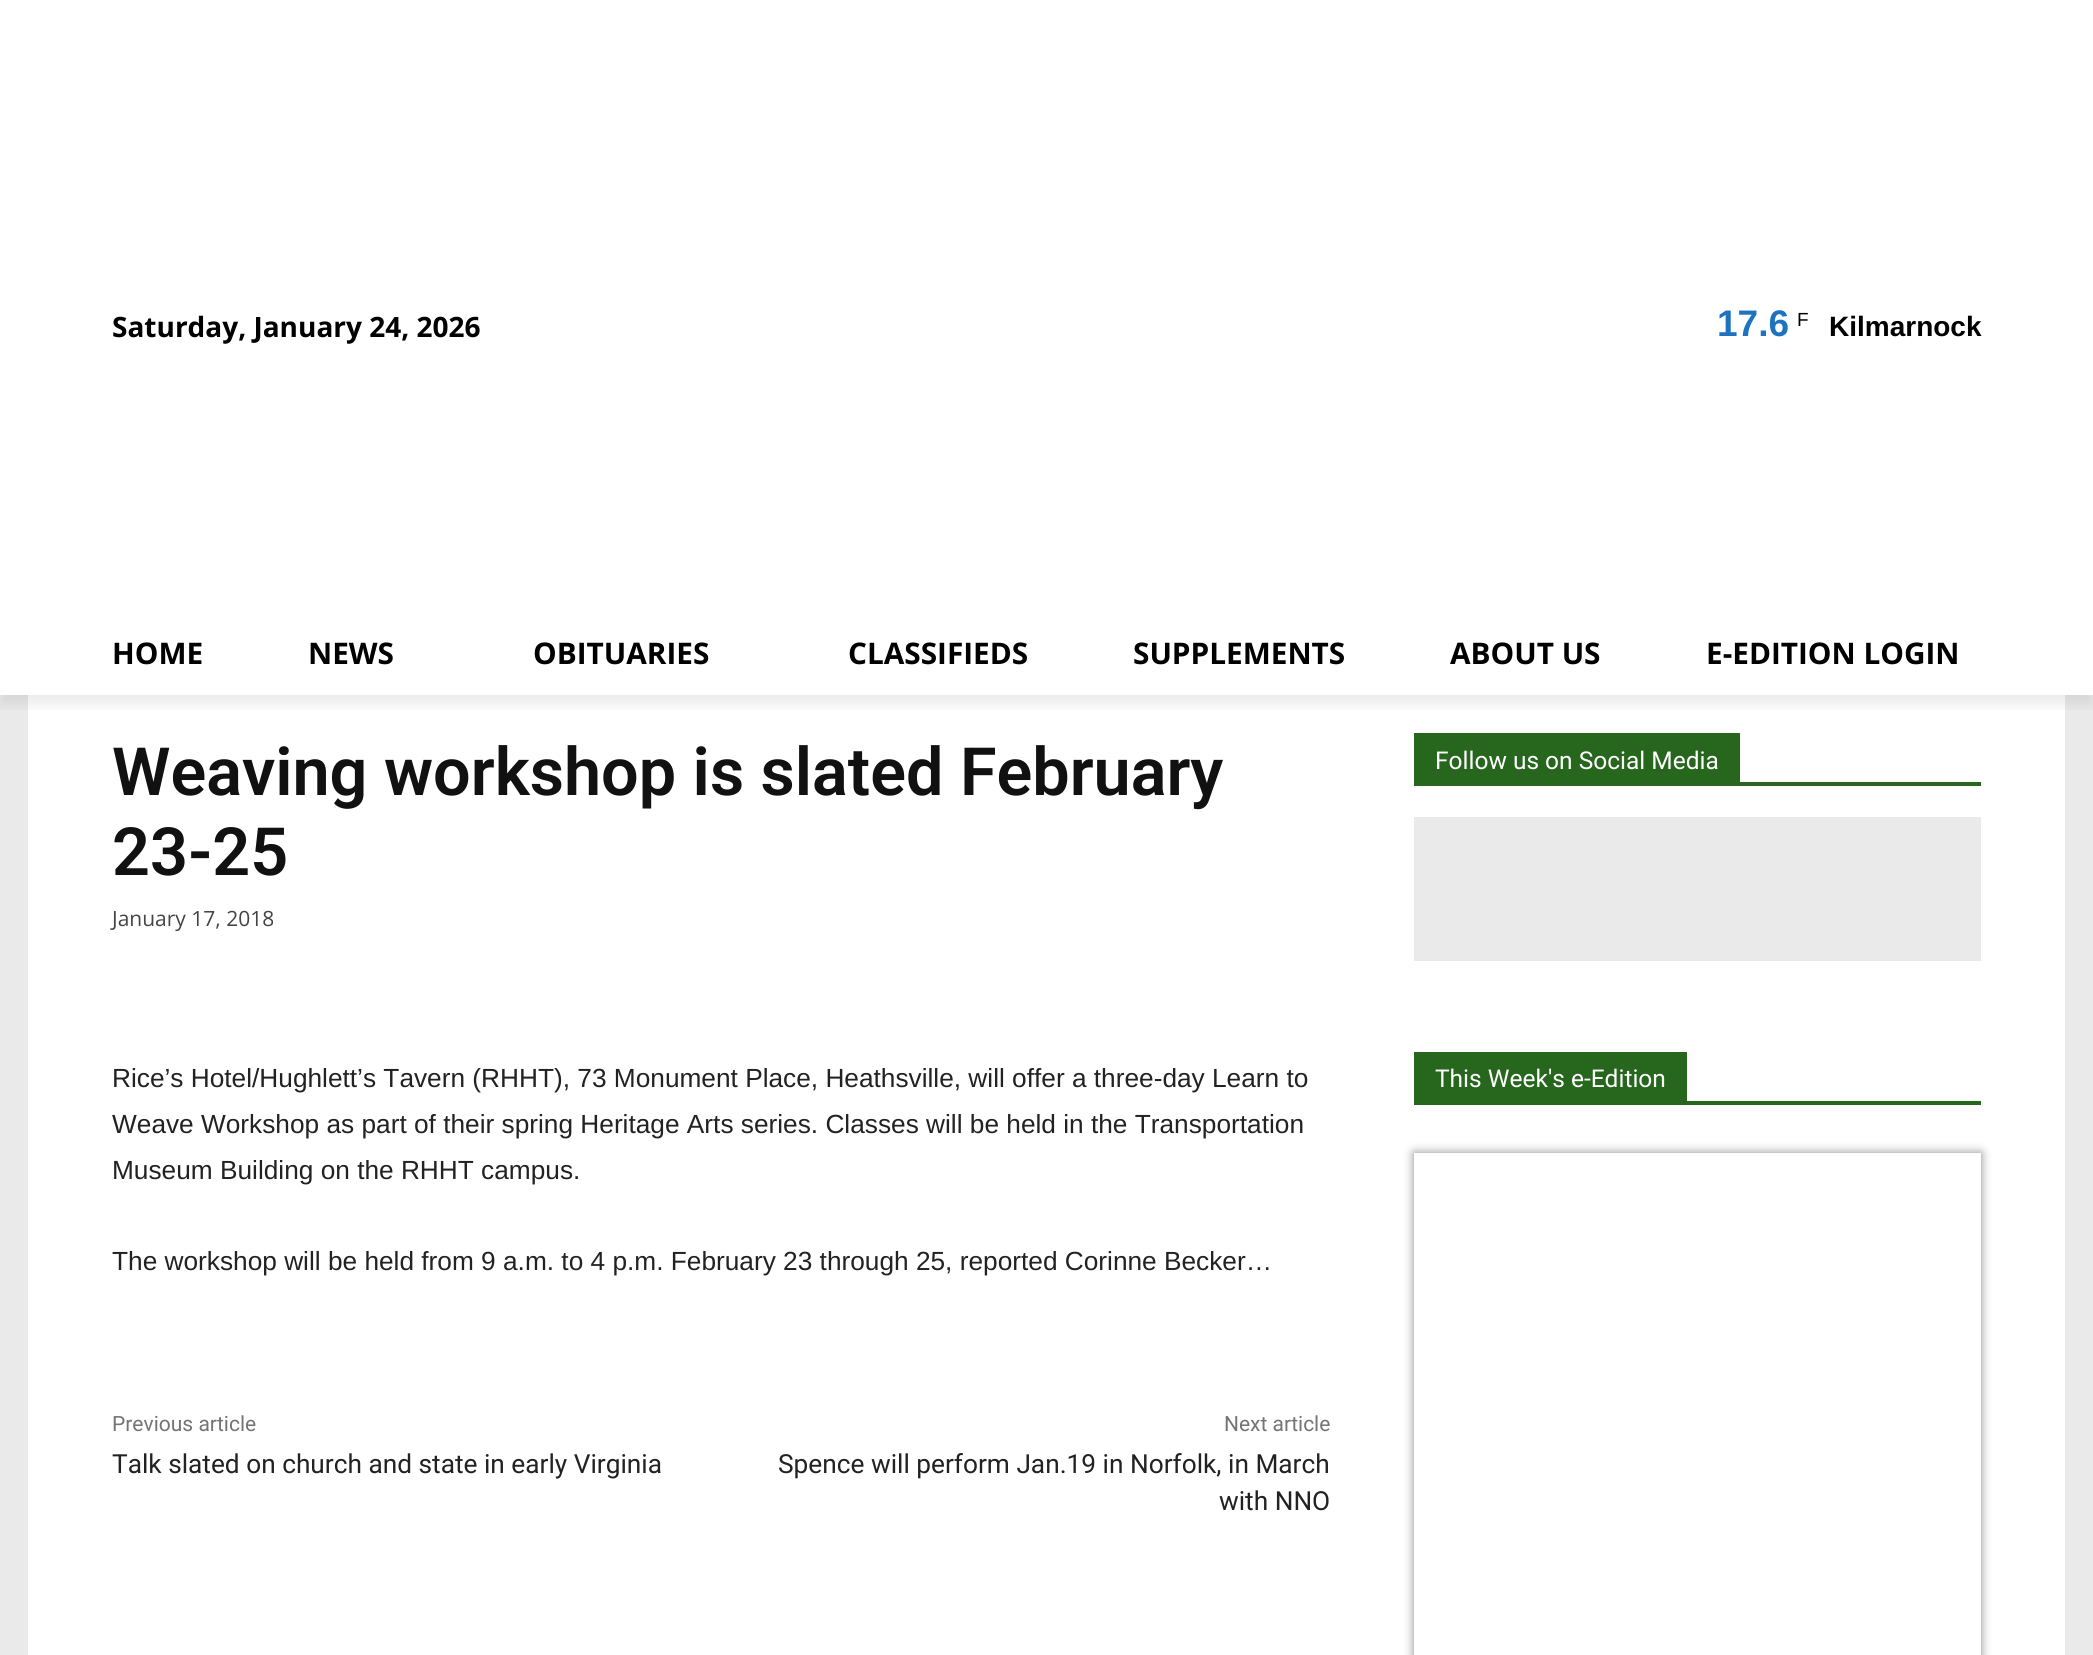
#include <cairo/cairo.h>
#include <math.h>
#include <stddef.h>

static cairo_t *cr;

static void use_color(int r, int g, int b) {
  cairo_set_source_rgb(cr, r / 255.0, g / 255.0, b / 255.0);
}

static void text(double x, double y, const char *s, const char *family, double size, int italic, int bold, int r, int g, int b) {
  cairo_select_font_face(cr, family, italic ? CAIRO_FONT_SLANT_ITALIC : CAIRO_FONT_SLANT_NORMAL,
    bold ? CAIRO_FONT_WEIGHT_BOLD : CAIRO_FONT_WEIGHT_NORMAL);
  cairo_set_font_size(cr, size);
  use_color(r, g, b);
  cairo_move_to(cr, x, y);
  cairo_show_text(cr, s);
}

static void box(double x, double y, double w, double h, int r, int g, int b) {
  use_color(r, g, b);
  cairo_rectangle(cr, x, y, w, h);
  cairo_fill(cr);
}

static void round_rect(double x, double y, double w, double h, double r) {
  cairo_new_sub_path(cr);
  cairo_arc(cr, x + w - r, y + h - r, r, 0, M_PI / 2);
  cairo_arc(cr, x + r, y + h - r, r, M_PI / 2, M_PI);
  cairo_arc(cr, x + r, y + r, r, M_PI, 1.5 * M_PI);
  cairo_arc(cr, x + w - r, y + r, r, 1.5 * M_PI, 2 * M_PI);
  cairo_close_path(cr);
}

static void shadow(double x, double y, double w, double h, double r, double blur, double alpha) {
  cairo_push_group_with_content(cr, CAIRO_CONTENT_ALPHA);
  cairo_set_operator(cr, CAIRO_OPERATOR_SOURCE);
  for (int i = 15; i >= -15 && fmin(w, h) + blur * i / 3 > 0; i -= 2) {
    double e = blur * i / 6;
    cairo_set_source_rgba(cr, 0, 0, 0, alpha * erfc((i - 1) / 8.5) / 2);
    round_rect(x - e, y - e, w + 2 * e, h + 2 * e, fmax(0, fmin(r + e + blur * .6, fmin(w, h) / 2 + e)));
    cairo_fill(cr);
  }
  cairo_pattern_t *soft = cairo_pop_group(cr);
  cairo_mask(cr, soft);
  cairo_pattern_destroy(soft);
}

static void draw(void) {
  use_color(234, 234, 234);
  cairo_paint(cr);
  box(0, 0, 2093, 695, 255, 255, 255);
  box(28, 695, 2037, 960, 255, 255, 255);
  cairo_save(cr);
  cairo_rectangle(cr, 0, 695, 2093, 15);
  cairo_clip(cr);
  use_color(0, 0, 0);
  shadow(0, 11, 2093, 694, 0, 7, 0.08);
  cairo_restore(cr);
  box(1414, 782, 567, 4, 38, 102, 29);
  box(1414, 733, 326, 49, 38, 102, 29);
  box(1414, 817, 567, 144, 234, 234, 234);
  box(1414, 1101, 567, 4, 38, 102, 29);
  box(1414, 1052, 273, 49, 38, 102, 29);
  cairo_save(cr);
  cairo_set_fill_rule(cr, CAIRO_FILL_RULE_EVEN_ODD);
  cairo_new_path(cr);
  cairo_move_to(cr, 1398, 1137);
  cairo_line_to(cr, 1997, 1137);
  cairo_line_to(cr, 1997, 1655);
  cairo_line_to(cr, 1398, 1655);
  cairo_close_path(cr);
  cairo_move_to(cr, 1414, 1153);
  cairo_line_to(cr, 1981, 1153);
  cairo_line_to(cr, 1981, 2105);
  cairo_line_to(cr, 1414, 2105);
  cairo_close_path(cr);
  cairo_clip(cr);
  use_color(136, 136, 136);
  shadow(1414, 1153, 567, 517, 0, 5, 1);
  cairo_restore(cr);
  text(112, 337, "Saturday, January 24, 2026", "Open Sans", 28, 0, 1, 0, 0, 0);
  text(1717, 336, "17.6", "Liberation Sans", 37, 0, 1, 30, 115, 190);
  text(1797, 326, "F", "Liberation Sans", 19, 0, 0, 0, 0, 0);
  text(1829, 336, "Kilmarnock", "Liberation Sans", 28, 0, 1, 0, 0, 0);
  text(112, 664, "HOME", "Open Sans", 29.75, 0, 1, 0, 0, 0);
  text(308, 664, "NEWS", "Open Sans", 29.75, 0, 1, 0, 0, 0);
  text(533, 664, "OBITUARIES", "Open Sans", 29.75, 0, 1, 0, 0, 0);
  text(848, 664, "CLASSIFIEDS", "Open Sans", 29.75, 0, 1, 0, 0, 0);
  text(1133, 664, "SUPPLEMENTS", "Open Sans", 29.75, 0, 1, 0, 0, 0);
  text(1450, 664, "ABOUT US", "Open Sans", 29.75, 0, 1, 0, 0, 0);
  text(1706, 664, "E-EDITION LOGIN", "Open Sans", 29.75, 0, 1, 0, 0, 0);
  text(112, 795, "Weaving workshop is slated February", "Roboto SemiBold", 66.5, 0, 0, 17, 17, 17);
  text(112, 875, "23-25", "Roboto SemiBold", 66.5, 0, 0, 17, 17, 17);
  text(112, 926, "January 17, 2018", "Open Sans", 21, 0, 0, 68, 68, 68);
  text(112, 1087, "Rice’s Hotel/Hughlett’s Tavern (RHHT), 73 Monument Place, Heathsville, will offer a three-day Learn to", "Liberation Sans", 26.25, 0, 0, 34, 34, 34);
  text(112, 1133, "Weave Workshop as part of their spring Heritage Arts series. Classes will be held in the Transportation", "Liberation Sans", 26.25, 0, 0, 34, 34, 34);
  text(112, 1179, "Museum Building on the RHHT campus.", "Liberation Sans", 26.25, 0, 0, 34, 34, 34);
  text(112, 1270, "The workshop will be held from 9 a.m. to 4 p.m. February 23 through 25, reported Corinne Becker…", "Liberation Sans", 26.25, 0, 0, 34, 34, 34);
  text(112, 1431, "Previous article", "Roboto", 21, 0, 0, 116, 116, 116);
  text(112, 1473, "Talk slated on church and state in early Virginia", "Roboto", 26.25, 0, 0, 34, 34, 34);
  text(1224, 1431, "Next article", "Roboto", 21, 0, 0, 116, 116, 116);
  text(778, 1473, "Spence will perform Jan.19 in Norfolk, in March", "Roboto", 26.25, 0, 0, 34, 34, 34);
  text(1219, 1510, "with NNO", "Roboto", 26.25, 0, 0, 34, 34, 34);
  text(1435, 769, "Follow us on Social Media", "Roboto", 24.5, 0, 0, 255, 255, 255);
  text(1435, 1087, "This Week's e-Edition", "Roboto", 24.5, 0, 0, 255, 255, 255);
}

int main(void) {
  cairo_surface_t *surface = cairo_image_surface_create(CAIRO_FORMAT_RGB24, 2093, 1655);
  cr = cairo_create(surface);
  cairo_font_options_t *options = cairo_font_options_create();
  cairo_font_options_set_hint_metrics(options, CAIRO_HINT_METRICS_OFF);
  cairo_font_options_set_hint_style(options, CAIRO_HINT_STYLE_NONE);
  cairo_set_font_options(cr, options);
  cairo_set_miter_limit(cr, 4);
  draw();
  cairo_surface_write_to_png(surface, "out.png");
  cairo_font_options_destroy(options);
  cairo_destroy(cr);
  cairo_surface_destroy(surface);
  return 0;
}
